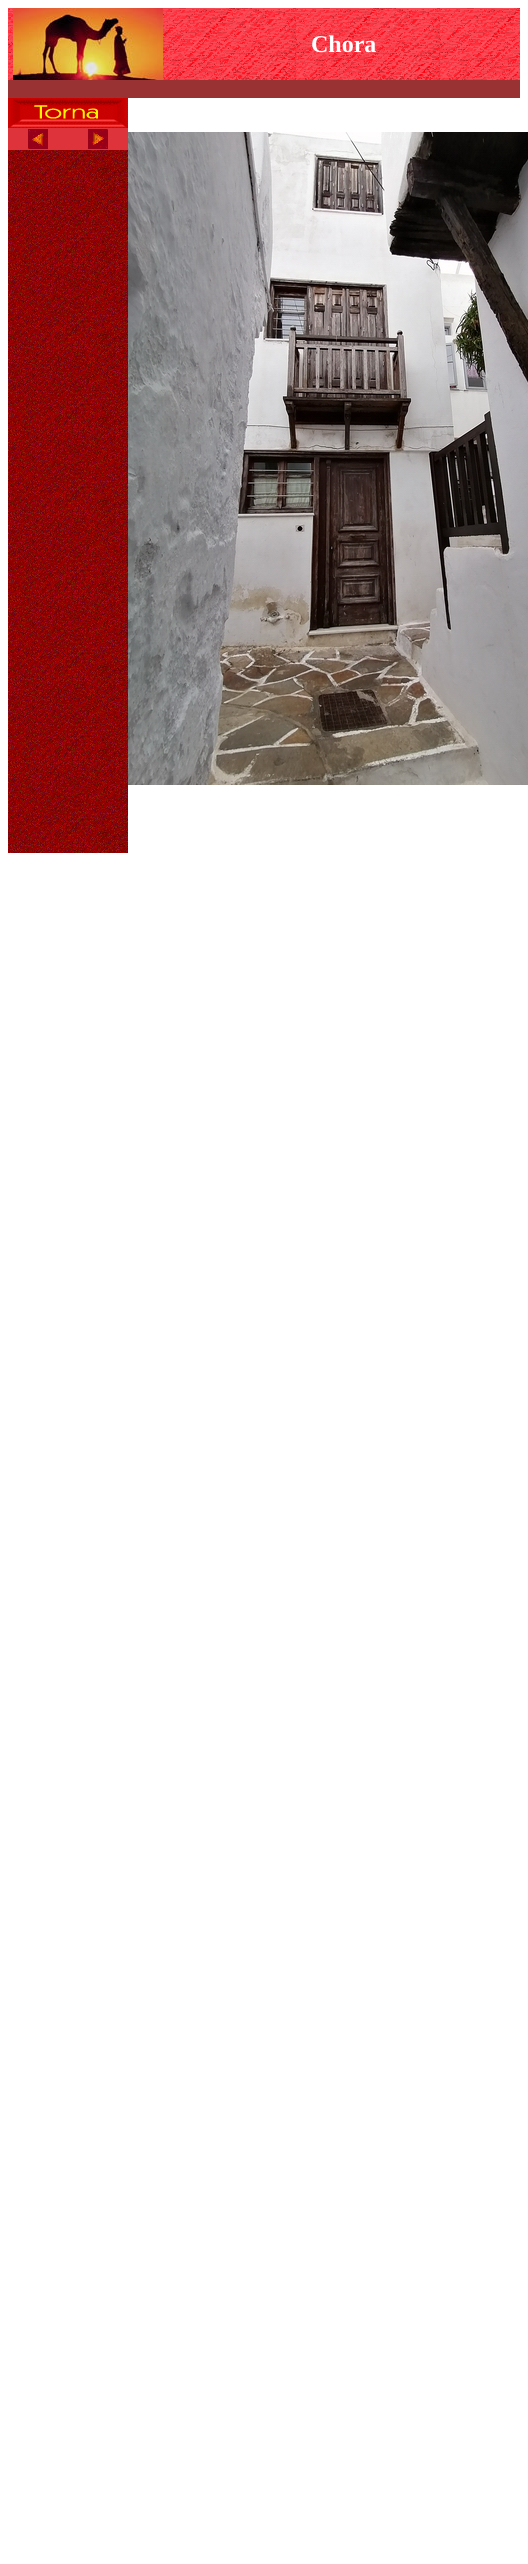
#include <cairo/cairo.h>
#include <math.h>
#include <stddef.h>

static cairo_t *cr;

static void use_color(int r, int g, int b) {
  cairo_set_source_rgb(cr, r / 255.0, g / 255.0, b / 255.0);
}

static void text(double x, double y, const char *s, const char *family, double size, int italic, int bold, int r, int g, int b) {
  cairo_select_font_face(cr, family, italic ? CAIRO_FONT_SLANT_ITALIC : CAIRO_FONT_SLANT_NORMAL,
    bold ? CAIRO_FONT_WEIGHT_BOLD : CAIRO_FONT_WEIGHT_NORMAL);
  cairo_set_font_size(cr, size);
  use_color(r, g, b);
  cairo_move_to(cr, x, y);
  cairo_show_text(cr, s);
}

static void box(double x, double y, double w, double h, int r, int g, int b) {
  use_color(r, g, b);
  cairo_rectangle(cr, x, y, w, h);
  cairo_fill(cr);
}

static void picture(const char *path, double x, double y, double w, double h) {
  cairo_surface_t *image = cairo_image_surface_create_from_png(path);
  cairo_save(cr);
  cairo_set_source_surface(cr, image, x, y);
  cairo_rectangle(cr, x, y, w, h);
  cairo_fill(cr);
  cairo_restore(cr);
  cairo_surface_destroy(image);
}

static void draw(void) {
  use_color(255, 255, 255);
  cairo_paint(cr);
  picture("img_01.png", 8, 8, 512, 72);
  picture("img_02.png", 13, 8, 150, 72);
  box(8, 80, 512, 18, 153, 51, 51);
  picture("img_03.png", 8, 150, 120, 703);
  picture("img_04.png", 8, 98, 120, 30);
  box(8, 128, 120, 22, 223, 51, 60);
  picture("img_05.png", 28, 129, 20, 20);
  picture("img_06.png", 88, 129, 20, 20);
  picture("img_07.png", 128, 132, 400, 653);
  text(311, 52, "Chora", "Liberation Serif", 24, 0, 1, 255, 255, 255);
}

int main(void) {
  cairo_surface_t *surface = cairo_image_surface_create(CAIRO_FORMAT_RGB24, 528, 2564);
  cr = cairo_create(surface);
  cairo_font_options_t *options = cairo_font_options_create();
  cairo_font_options_set_hint_metrics(options, CAIRO_HINT_METRICS_OFF);
  cairo_font_options_set_hint_style(options, CAIRO_HINT_STYLE_NONE);
  cairo_set_font_options(cr, options);
  cairo_set_miter_limit(cr, 4);
  draw();
  cairo_surface_write_to_png(surface, "out.png");
  cairo_font_options_destroy(options);
  cairo_destroy(cr);
  cairo_surface_destroy(surface);
  return 0;
}
